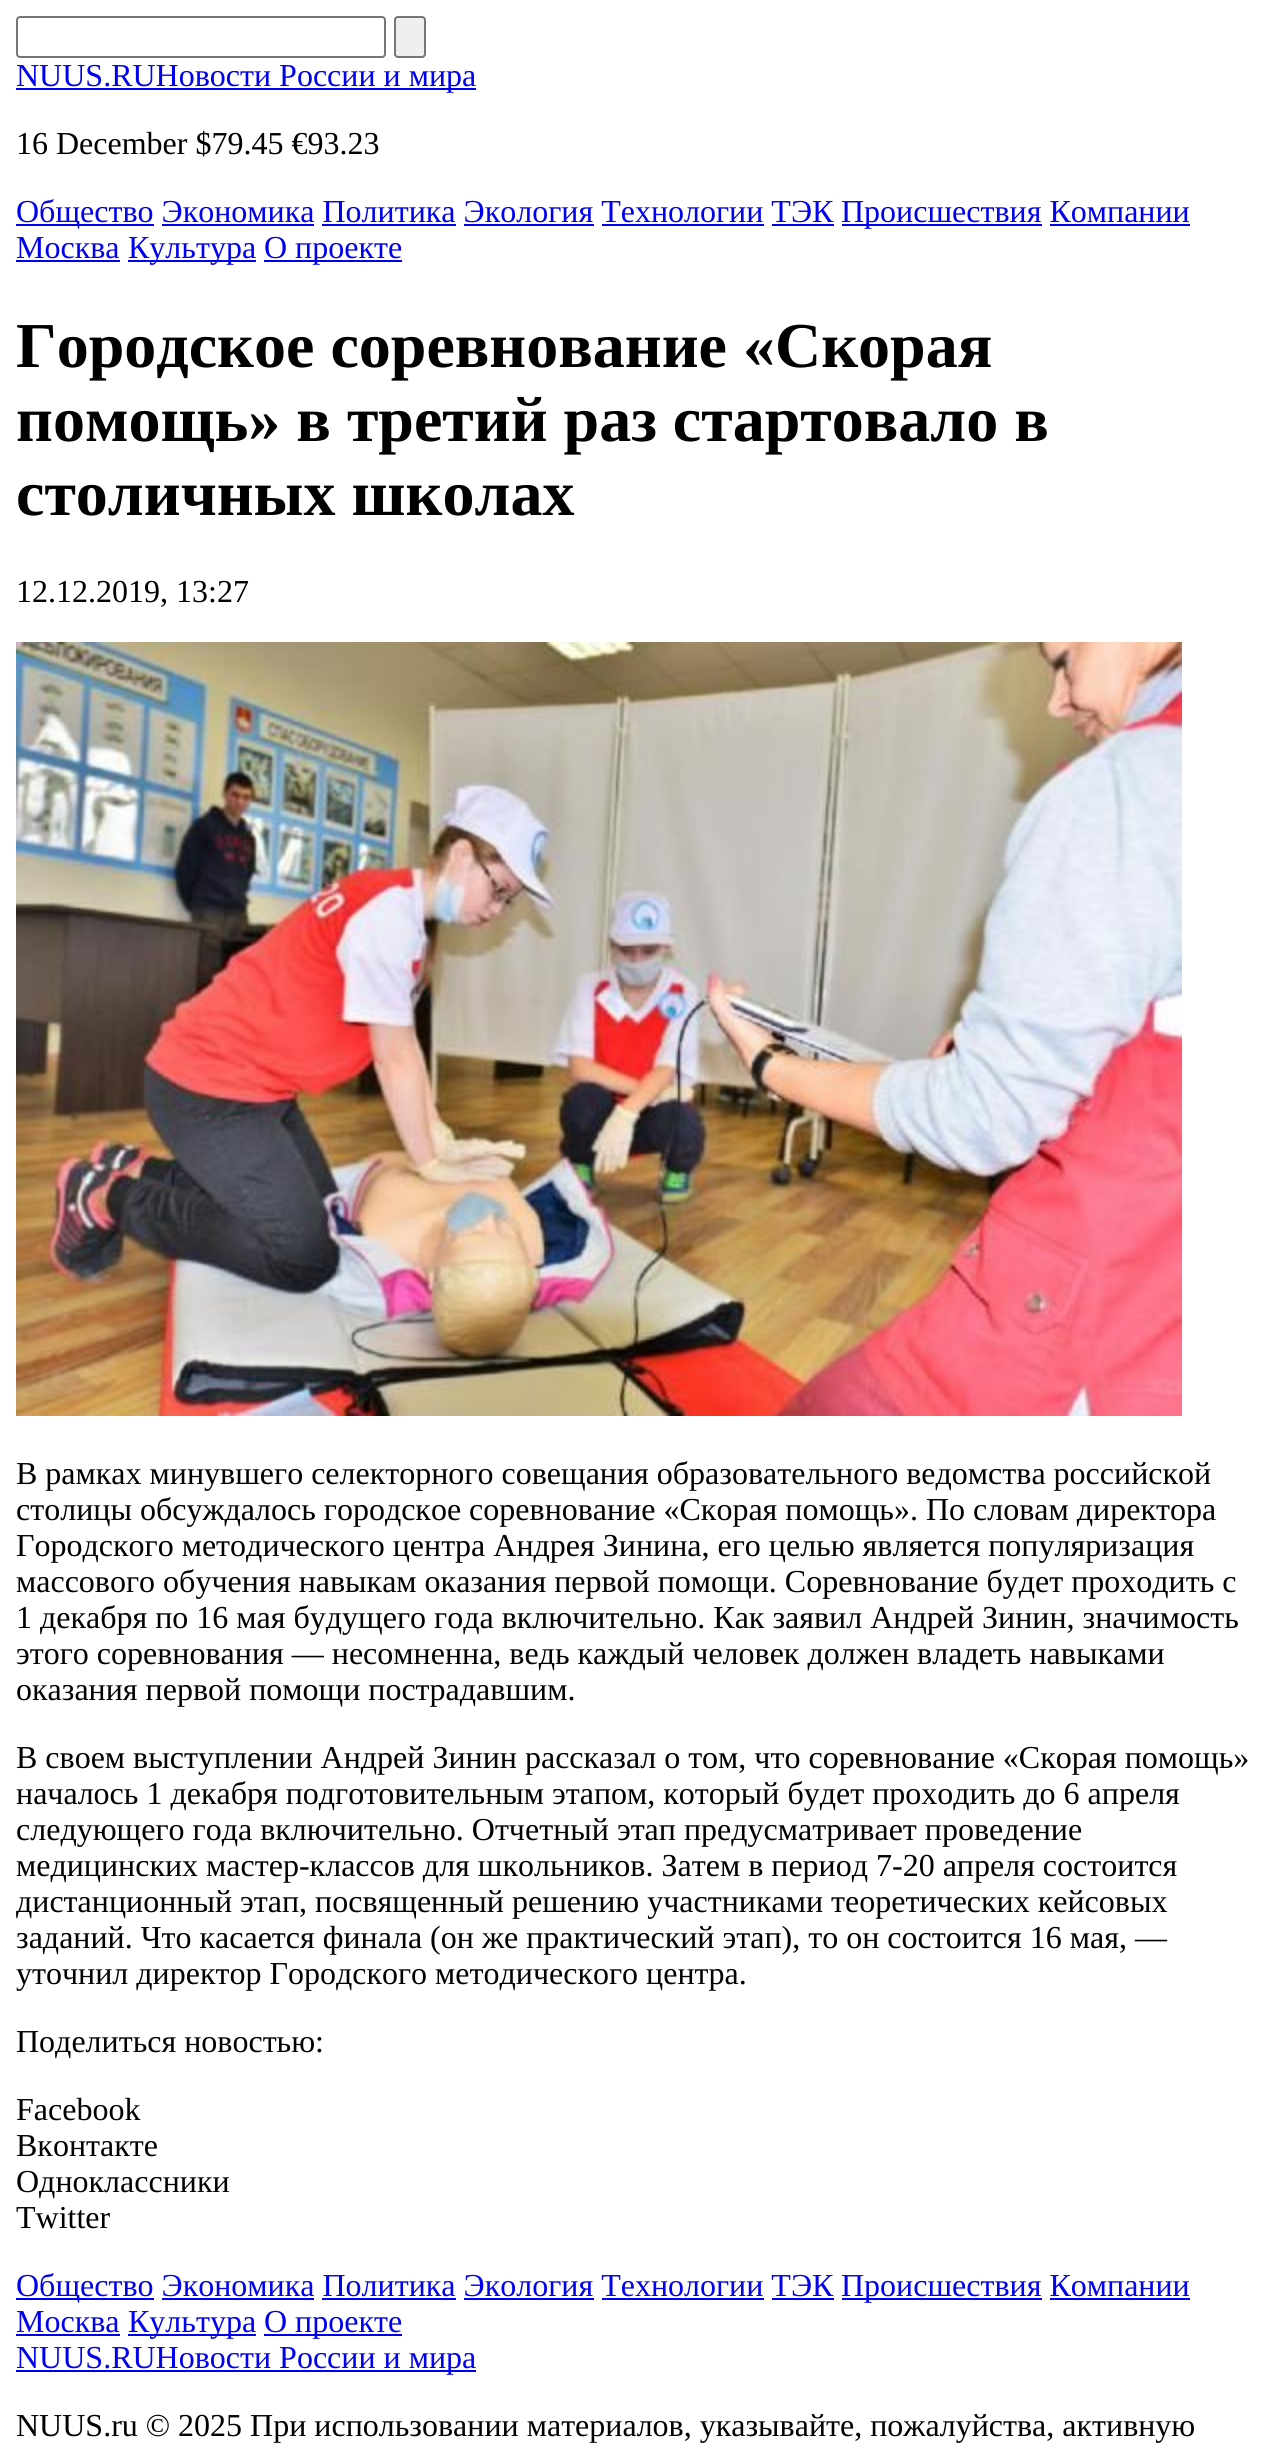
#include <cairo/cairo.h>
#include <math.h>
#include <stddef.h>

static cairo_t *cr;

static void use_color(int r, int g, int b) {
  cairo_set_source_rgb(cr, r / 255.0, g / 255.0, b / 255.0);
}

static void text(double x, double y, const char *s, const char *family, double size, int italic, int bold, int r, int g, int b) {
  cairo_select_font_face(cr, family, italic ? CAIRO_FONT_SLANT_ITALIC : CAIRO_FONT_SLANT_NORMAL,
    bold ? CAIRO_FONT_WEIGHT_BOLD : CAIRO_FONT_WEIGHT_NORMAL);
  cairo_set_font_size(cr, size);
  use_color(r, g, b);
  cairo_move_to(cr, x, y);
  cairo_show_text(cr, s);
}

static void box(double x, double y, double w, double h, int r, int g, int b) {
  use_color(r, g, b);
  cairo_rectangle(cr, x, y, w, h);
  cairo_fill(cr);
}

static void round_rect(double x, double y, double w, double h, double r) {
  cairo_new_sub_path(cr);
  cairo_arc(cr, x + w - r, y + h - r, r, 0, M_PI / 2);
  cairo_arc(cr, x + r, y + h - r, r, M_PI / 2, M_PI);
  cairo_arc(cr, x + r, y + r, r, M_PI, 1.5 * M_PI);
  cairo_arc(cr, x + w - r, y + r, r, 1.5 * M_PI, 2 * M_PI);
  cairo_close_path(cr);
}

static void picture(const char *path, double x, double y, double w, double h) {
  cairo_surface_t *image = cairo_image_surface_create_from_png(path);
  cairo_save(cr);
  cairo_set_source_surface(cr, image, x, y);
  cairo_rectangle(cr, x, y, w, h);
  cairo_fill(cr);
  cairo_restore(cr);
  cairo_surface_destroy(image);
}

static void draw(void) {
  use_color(255, 255, 255);
  cairo_paint(cr);
  round_rect(17, 17, 368, 40, 3);
  use_color(118, 118, 118);
  cairo_stroke(cr);
  use_color(239, 239, 239);
  round_rect(395, 17, 30, 40, 3);
  cairo_fill_preserve(cr);
  use_color(118, 118, 118);
  cairo_stroke(cr);
  box(16, 88, 460, 2, 0, 0, 238);
  box(16, 224, 138, 2, 0, 0, 238);
  box(842, 224, 200, 2, 0, 0, 238);
  box(162, 224, 152, 2, 0, 0, 238);
  box(322, 224, 134, 2, 0, 0, 238);
  box(464, 224, 130, 2, 0, 0, 238);
  box(602, 224, 162, 2, 0, 0, 238);
  box(772, 224, 62, 2, 0, 0, 238);
  box(1050, 224, 140, 2, 0, 0, 238);
  box(16, 260, 104, 2, 0, 0, 238);
  box(128, 260, 128, 2, 0, 0, 238);
  box(264, 260, 138, 2, 0, 0, 238);
  picture("img_01.png", 16, 642, 1166, 774);
  box(16, 2298, 138, 2, 0, 0, 238);
  box(842, 2298, 200, 2, 0, 0, 238);
  box(162, 2298, 152, 2, 0, 0, 238);
  box(322, 2298, 134, 2, 0, 0, 238);
  box(464, 2298, 130, 2, 0, 0, 238);
  box(602, 2298, 162, 2, 0, 0, 238);
  box(772, 2298, 62, 2, 0, 0, 238);
  box(1050, 2298, 140, 2, 0, 0, 238);
  box(16, 2334, 104, 2, 0, 0, 238);
  box(128, 2334, 128, 2, 0, 0, 238);
  box(264, 2334, 138, 2, 0, 0, 238);
  box(16, 2370, 460, 2, 0, 0, 238);
  text(16, 86, "NUUS.RUНовости России и мира", "Liberation Serif", 32, 0, 0, 0, 0, 238);
  text(16, 154, "16 December $79.45 €93.23", "Liberation Serif", 32, 0, 0, 0, 0, 0);
  text(16, 222, "Общество Экономика Политика Экология Технологии ТЭК", "Liberation Serif", 32, 0, 0, 0, 0, 238);
  text(841, 222, "Происшествия Компании", "Liberation Serif", 32, 0, 0, 0, 0, 238);
  text(16, 258, "Москва", "Liberation Serif", 32, 0, 0, 0, 0, 238);
  text(128, 258, "Культура", "Liberation Serif", 32, 0, 0, 0, 0, 238);
  text(264, 258, "О проекте", "Liberation Serif", 32, 0, 0, 0, 0, 238);
  text(16, 367, "Городское соревнование «Скорая", "Liberation Serif", 64, 0, 1, 0, 0, 0);
  text(16, 441, "помощь» в третий раз стартовало в", "Liberation Serif", 64, 0, 1, 0, 0, 0);
  text(16, 515, "столичных школах", "Liberation Serif", 64, 0, 1, 0, 0, 0);
  text(16, 602, "12.12.2019, 13:27", "Liberation Serif", 32, 0, 0, 0, 0, 0);
  text(16, 1484, "В рамках минувшего селекторного совещания образовательного ведомства российской", "Liberation Serif", 32, 0, 0, 0, 0, 0);
  text(16, 1520, "столицы обсуждалось городское соревнование «Скорая помощь». По словам директора", "Liberation Serif", 32, 0, 0, 0, 0, 0);
  text(16, 1556, "Городского методического центра Андрея Зинина, его целью является популяризация", "Liberation Serif", 32, 0, 0, 0, 0, 0);
  text(16, 1592, "массового обучения навыкам оказания первой помощи. Соревнование будет проходить с", "Liberation Serif", 32, 0, 0, 0, 0, 0);
  text(16, 1628, "1 декабря по 16 мая будущего года включительно. Как заявил Андрей Зинин, значимость", "Liberation Serif", 32, 0, 0, 0, 0, 0);
  text(16, 1664, "этого соревнования — несомненна, ведь каждый человек должен владеть навыками", "Liberation Serif", 32, 0, 0, 0, 0, 0);
  text(16, 1700, "оказания первой помощи пострадавшим.", "Liberation Serif", 32, 0, 0, 0, 0, 0);
  text(16, 1768, "В своем выступлении Андрей Зинин рассказал о том, что соревнование «Скорая помощь»", "Liberation Serif", 32, 0, 0, 0, 0, 0);
  text(16, 1804, "началось 1 декабря подготовительным этапом, который будет проходить до 6 апреля", "Liberation Serif", 32, 0, 0, 0, 0, 0);
  text(16, 1840, "следующего года включительно. Отчетный этап предусматривает проведение", "Liberation Serif", 32, 0, 0, 0, 0, 0);
  text(16, 1876, "медицинских мастер-классов для школьников. Затем в период 7-20 апреля состоится", "Liberation Serif", 32, 0, 0, 0, 0, 0);
  text(16, 1912, "дистанционный этап, посвященный решению участниками теоретических кейсовых", "Liberation Serif", 32, 0, 0, 0, 0, 0);
  text(16, 1948, "заданий. Что касается финала (он же практический этап), то он состоится 16 мая, —", "Liberation Serif", 32, 0, 0, 0, 0, 0);
  text(16, 1984, "уточнил директор Городского методического центра.", "Liberation Serif", 32, 0, 0, 0, 0, 0);
  text(16, 2052, "Поделиться новостью:", "Liberation Serif", 32, 0, 0, 0, 0, 0);
  text(16, 2120, "Facebook", "Liberation Serif", 32, 0, 0, 0, 0, 0);
  text(16, 2156, "Вконтакте", "Liberation Serif", 32, 0, 0, 0, 0, 0);
  text(16, 2192, "Одноклассники", "Liberation Serif", 32, 0, 0, 0, 0, 0);
  text(16, 2228, "Twitter", "Liberation Serif", 32, 0, 0, 0, 0, 0);
  text(16, 2296, "Общество Экономика Политика Экология Технологии ТЭК", "Liberation Serif", 32, 0, 0, 0, 0, 238);
  text(841, 2296, "Происшествия Компании", "Liberation Serif", 32, 0, 0, 0, 0, 238);
  text(16, 2332, "Москва", "Liberation Serif", 32, 0, 0, 0, 0, 238);
  text(128, 2332, "Культура", "Liberation Serif", 32, 0, 0, 0, 0, 238);
  text(264, 2332, "О проекте", "Liberation Serif", 32, 0, 0, 0, 0, 238);
  text(16, 2368, "NUUS.RUНовости России и мира", "Liberation Serif", 32, 0, 0, 0, 0, 238);
  text(16, 2436, "NUUS.ru © 2025 При использовании материалов, указывайте, пожалуйства, активную", "Liberation Serif", 32, 0, 0, 0, 0, 0);
}

int main(void) {
  cairo_surface_t *surface = cairo_image_surface_create(CAIRO_FORMAT_RGB24, 1269, 2450);
  cr = cairo_create(surface);
  cairo_font_options_t *options = cairo_font_options_create();
  cairo_font_options_set_hint_metrics(options, CAIRO_HINT_METRICS_OFF);
  cairo_font_options_set_hint_style(options, CAIRO_HINT_STYLE_NONE);
  cairo_set_font_options(cr, options);
  cairo_set_miter_limit(cr, 4);
  draw();
  cairo_surface_write_to_png(surface, "out.png");
  cairo_font_options_destroy(options);
  cairo_destroy(cr);
  cairo_surface_destroy(surface);
  return 0;
}
